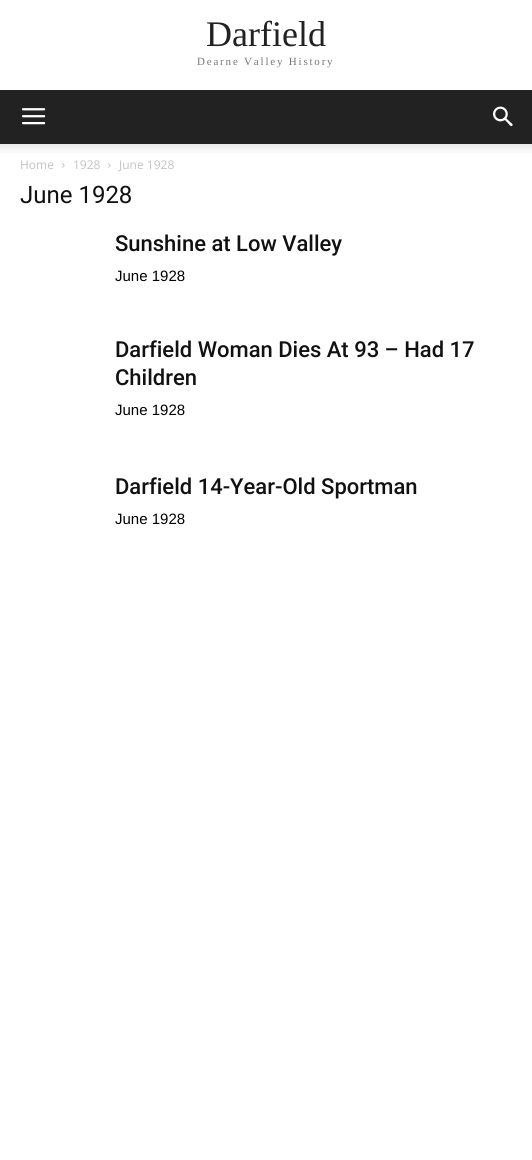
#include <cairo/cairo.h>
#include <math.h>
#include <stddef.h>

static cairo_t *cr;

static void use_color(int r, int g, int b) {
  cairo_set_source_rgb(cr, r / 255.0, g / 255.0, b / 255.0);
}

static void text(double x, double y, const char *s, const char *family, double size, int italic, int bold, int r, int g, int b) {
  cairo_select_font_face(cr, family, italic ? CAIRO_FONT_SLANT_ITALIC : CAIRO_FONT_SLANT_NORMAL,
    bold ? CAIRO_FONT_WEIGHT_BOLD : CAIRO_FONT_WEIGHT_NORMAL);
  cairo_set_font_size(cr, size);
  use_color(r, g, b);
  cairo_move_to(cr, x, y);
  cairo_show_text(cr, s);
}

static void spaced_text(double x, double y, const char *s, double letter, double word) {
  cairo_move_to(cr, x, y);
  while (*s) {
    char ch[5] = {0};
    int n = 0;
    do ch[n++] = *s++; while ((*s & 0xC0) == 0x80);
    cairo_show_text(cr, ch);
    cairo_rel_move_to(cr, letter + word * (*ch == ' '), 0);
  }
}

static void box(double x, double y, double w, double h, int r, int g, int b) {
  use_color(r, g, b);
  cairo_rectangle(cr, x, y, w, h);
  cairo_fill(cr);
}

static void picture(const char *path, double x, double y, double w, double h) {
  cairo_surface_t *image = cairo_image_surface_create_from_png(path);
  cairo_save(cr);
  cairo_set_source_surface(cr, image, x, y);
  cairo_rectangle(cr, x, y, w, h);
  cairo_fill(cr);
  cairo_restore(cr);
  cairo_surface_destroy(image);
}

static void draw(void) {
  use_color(255, 255, 255);
  cairo_paint(cr);
  box(0, 90, 532, 54, 34, 34, 34);
  picture("img_01.png", 22, 108, 24, 17);
  picture("img_02.png", 493, 106, 20, 21);
  picture("img_03.png", 0, 144, 532, 9);
  picture("img_04.png", 62, 163, 3, 5);
  picture("img_04.png", 108, 163, 3, 5);
  text(206, 46, "Darfield", "Liberation Serif", 36, 0, 0, 34, 34, 34);
  cairo_set_font_size(cr, 11);
  use_color(119, 119, 119);
  spaced_text(197, 65, "Dearne Valley History", 1.8, 0);
  text(20, 169, "Home", "Open Sans", 12, 0, 0, 195, 195, 195);
  text(73, 169, "1928", "Open Sans", 12, 0, 0, 195, 195, 195);
  text(119, 169, "June 1928", "Open Sans", 12, 0, 0, 195, 195, 195);
  text(20, 203, "June 1928", "Roboto", 24, 0, 0, 17, 17, 17);
  text(115, 251, "Sunshine at Low Valley", "Roboto Medium", 22, 0, 0, 17, 17, 17);
  text(115, 281, "June 1928", "Liberation Sans", 15, 0, 0, 0, 0, 0);
  text(115, 357, "Darfield Woman Dies At 93 – Had 17", "Roboto Medium", 22, 0, 0, 17, 17, 17);
  text(115, 385, "Children", "Roboto Medium", 22, 0, 0, 17, 17, 17);
  text(115, 415, "June 1928", "Liberation Sans", 15, 0, 0, 0, 0, 0);
  text(115, 494, "Darfield 14-Year-Old Sportman", "Roboto Medium", 22, 0, 0, 17, 17, 17);
  text(115, 524, "June 1928", "Liberation Sans", 15, 0, 0, 0, 0, 0);
}

int main(void) {
  cairo_surface_t *surface = cairo_image_surface_create(CAIRO_FORMAT_RGB24, 532, 1160);
  cr = cairo_create(surface);
  cairo_font_options_t *options = cairo_font_options_create();
  cairo_font_options_set_hint_metrics(options, CAIRO_HINT_METRICS_OFF);
  cairo_font_options_set_hint_style(options, CAIRO_HINT_STYLE_NONE);
  cairo_set_font_options(cr, options);
  cairo_set_miter_limit(cr, 4);
  draw();
  cairo_surface_write_to_png(surface, "out.png");
  cairo_font_options_destroy(options);
  cairo_destroy(cr);
  cairo_surface_destroy(surface);
  return 0;
}
